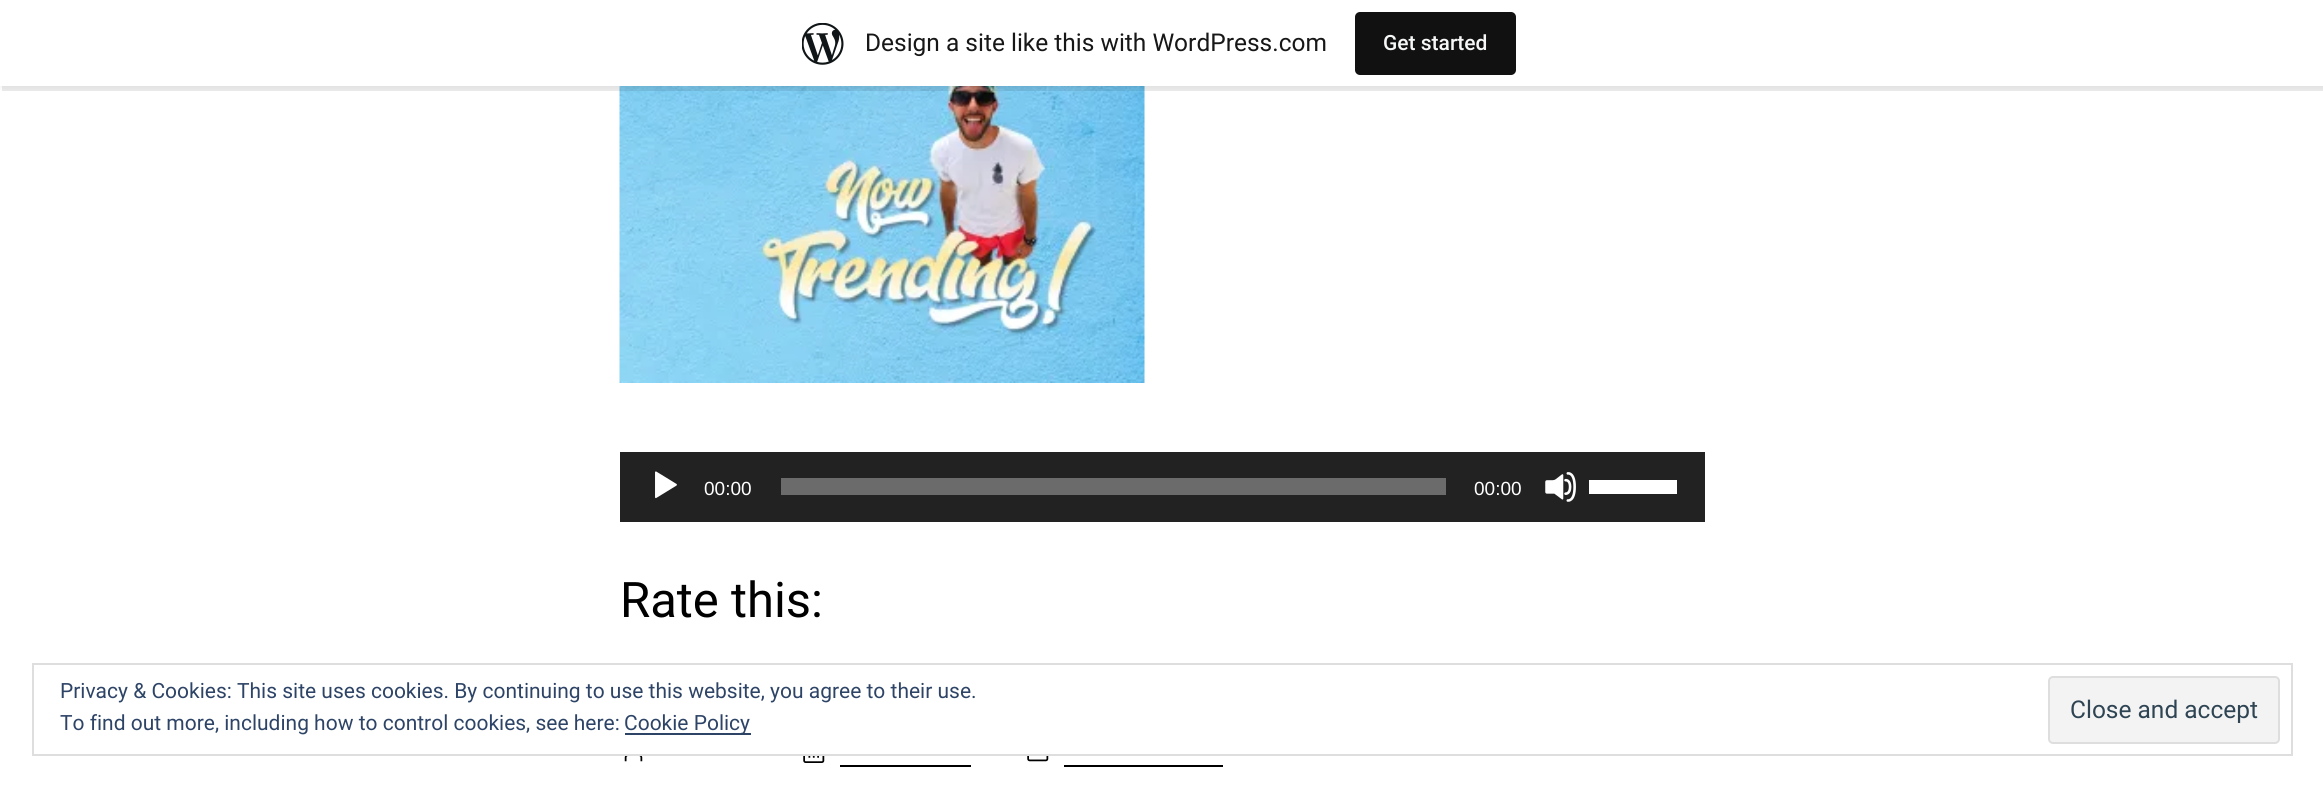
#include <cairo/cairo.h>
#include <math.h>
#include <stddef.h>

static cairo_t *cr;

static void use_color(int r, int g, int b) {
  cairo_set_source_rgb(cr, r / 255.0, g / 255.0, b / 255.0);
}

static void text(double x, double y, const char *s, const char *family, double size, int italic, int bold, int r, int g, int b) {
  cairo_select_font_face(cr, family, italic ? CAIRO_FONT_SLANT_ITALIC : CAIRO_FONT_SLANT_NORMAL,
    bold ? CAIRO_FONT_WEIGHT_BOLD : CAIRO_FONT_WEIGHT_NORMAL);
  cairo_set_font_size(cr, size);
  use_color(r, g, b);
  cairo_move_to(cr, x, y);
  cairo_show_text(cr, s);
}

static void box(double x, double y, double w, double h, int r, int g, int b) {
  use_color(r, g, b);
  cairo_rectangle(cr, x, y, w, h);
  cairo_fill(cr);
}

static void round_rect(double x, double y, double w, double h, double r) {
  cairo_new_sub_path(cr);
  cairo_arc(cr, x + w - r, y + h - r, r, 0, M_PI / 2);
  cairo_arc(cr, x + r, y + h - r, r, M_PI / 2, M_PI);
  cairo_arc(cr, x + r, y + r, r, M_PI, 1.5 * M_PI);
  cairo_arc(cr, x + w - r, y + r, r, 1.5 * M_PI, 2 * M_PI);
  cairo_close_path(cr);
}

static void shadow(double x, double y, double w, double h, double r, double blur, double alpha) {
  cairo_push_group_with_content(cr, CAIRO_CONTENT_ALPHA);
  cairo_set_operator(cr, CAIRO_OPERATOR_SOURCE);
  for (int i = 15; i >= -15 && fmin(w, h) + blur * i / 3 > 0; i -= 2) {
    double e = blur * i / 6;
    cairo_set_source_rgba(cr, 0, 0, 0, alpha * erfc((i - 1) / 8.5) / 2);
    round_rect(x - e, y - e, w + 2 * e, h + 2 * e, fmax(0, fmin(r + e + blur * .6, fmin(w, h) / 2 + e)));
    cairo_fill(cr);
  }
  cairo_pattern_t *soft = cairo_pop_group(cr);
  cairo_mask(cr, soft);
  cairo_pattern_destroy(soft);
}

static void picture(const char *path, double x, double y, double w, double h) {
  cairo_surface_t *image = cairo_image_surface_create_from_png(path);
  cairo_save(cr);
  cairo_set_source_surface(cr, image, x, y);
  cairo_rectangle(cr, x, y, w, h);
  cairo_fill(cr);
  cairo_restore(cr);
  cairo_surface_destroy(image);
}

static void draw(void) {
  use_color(255, 255, 255);
  cairo_paint(cr);
  picture("img_02.png", 619, 86, 526, 297);
  use_color(0, 0, 0);
  shadow(0, 2, 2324, 86, 0, 2, 0.05);
  cairo_set_source_rgba(cr, 0, 0, 0, 0.08);
  cairo_new_path(cr);
  cairo_move_to(cr, 2, 86);
  cairo_line_to(cr, 2, 91);
  cairo_line_to(cr, 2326, 91);
  cairo_line_to(cr, 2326, 5);
  cairo_line_to(cr, 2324, 5);
  cairo_line_to(cr, 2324, 86);
  cairo_close_path(cr);
  cairo_fill(cr);
  box(0, 0, 2323, 86, 255, 255, 255);
  picture("img_01.png", 802, 23, 42, 42);
  use_color(17, 17, 17);
  round_rect(1355, 12, 161, 63, 5);
  cairo_fill(cr);
  box(620, 452, 1085, 70, 34, 34, 34);
  picture("img_03.png", 655, 471, 22, 28);
  box(781, 478, 665, 17, 107, 107, 107);
  picture("img_04.png", 1545, 472, 31, 30);
  box(1589, 480, 88, 14, 255, 255, 255);
  picture("img_05.png", 624, 756, 19, 6);
  picture("img_06.png", 803, 756, 22, 7);
  box(840, 765, 131, 2, 0, 0, 0);
  picture("img_07.png", 1027, 756, 22, 6);
  box(1064, 765, 159, 2, 0, 0, 0);
  cairo_rectangle(cr, 33, 664, 2259, 91);
  use_color(222, 222, 222);
  cairo_stroke(cr);
  box(625, 733, 126, 2, 46, 68, 103);
  use_color(243, 243, 243);
  round_rect(2049, 677, 230, 66, 4);
  cairo_fill_preserve(cr);
  use_color(222, 222, 222);
  cairo_stroke(cr);
  text(865, 51, "Design a site like this with WordPress.com", "Roboto", 24.5, 0, 0, 23, 23, 23);
  text(1383, 50, "Get started", "Roboto Medium", 21, 0, 0, 246, 247, 247);
  text(704, 495, "00:00", "Liberation Sans", 19, 0, 0, 255, 255, 255);
  text(1474, 495, "00:00", "Liberation Sans", 19, 0, 0, 255, 255, 255);
  text(620, 617, "Rate this:", "Roboto", 49, 0, 0, 0, 0, 0);
  text(60, 698, "Privacy & Cookies: This site uses cookies. By continuing to use this website, you agree to their use.", "Roboto", 21, 0, 0, 46, 68, 103);
  text(60, 730, "To find out more, including how to control cookies, see here:", "Roboto", 21, 0, 0, 46, 68, 103);
  text(624, 730, "Cookie Policy", "Roboto", 21, 0, 0, 46, 68, 103);
  text(2070, 718, "Close and accept", "Roboto", 24.5, 0, 0, 46, 68, 83);
}

int main(void) {
  cairo_surface_t *surface = cairo_image_surface_create(CAIRO_FORMAT_RGB24, 2323, 787);
  cr = cairo_create(surface);
  cairo_font_options_t *options = cairo_font_options_create();
  cairo_font_options_set_hint_metrics(options, CAIRO_HINT_METRICS_OFF);
  cairo_font_options_set_hint_style(options, CAIRO_HINT_STYLE_NONE);
  cairo_set_font_options(cr, options);
  cairo_set_miter_limit(cr, 4);
  draw();
  cairo_surface_write_to_png(surface, "out.png");
  cairo_font_options_destroy(options);
  cairo_destroy(cr);
  cairo_surface_destroy(surface);
  return 0;
}
